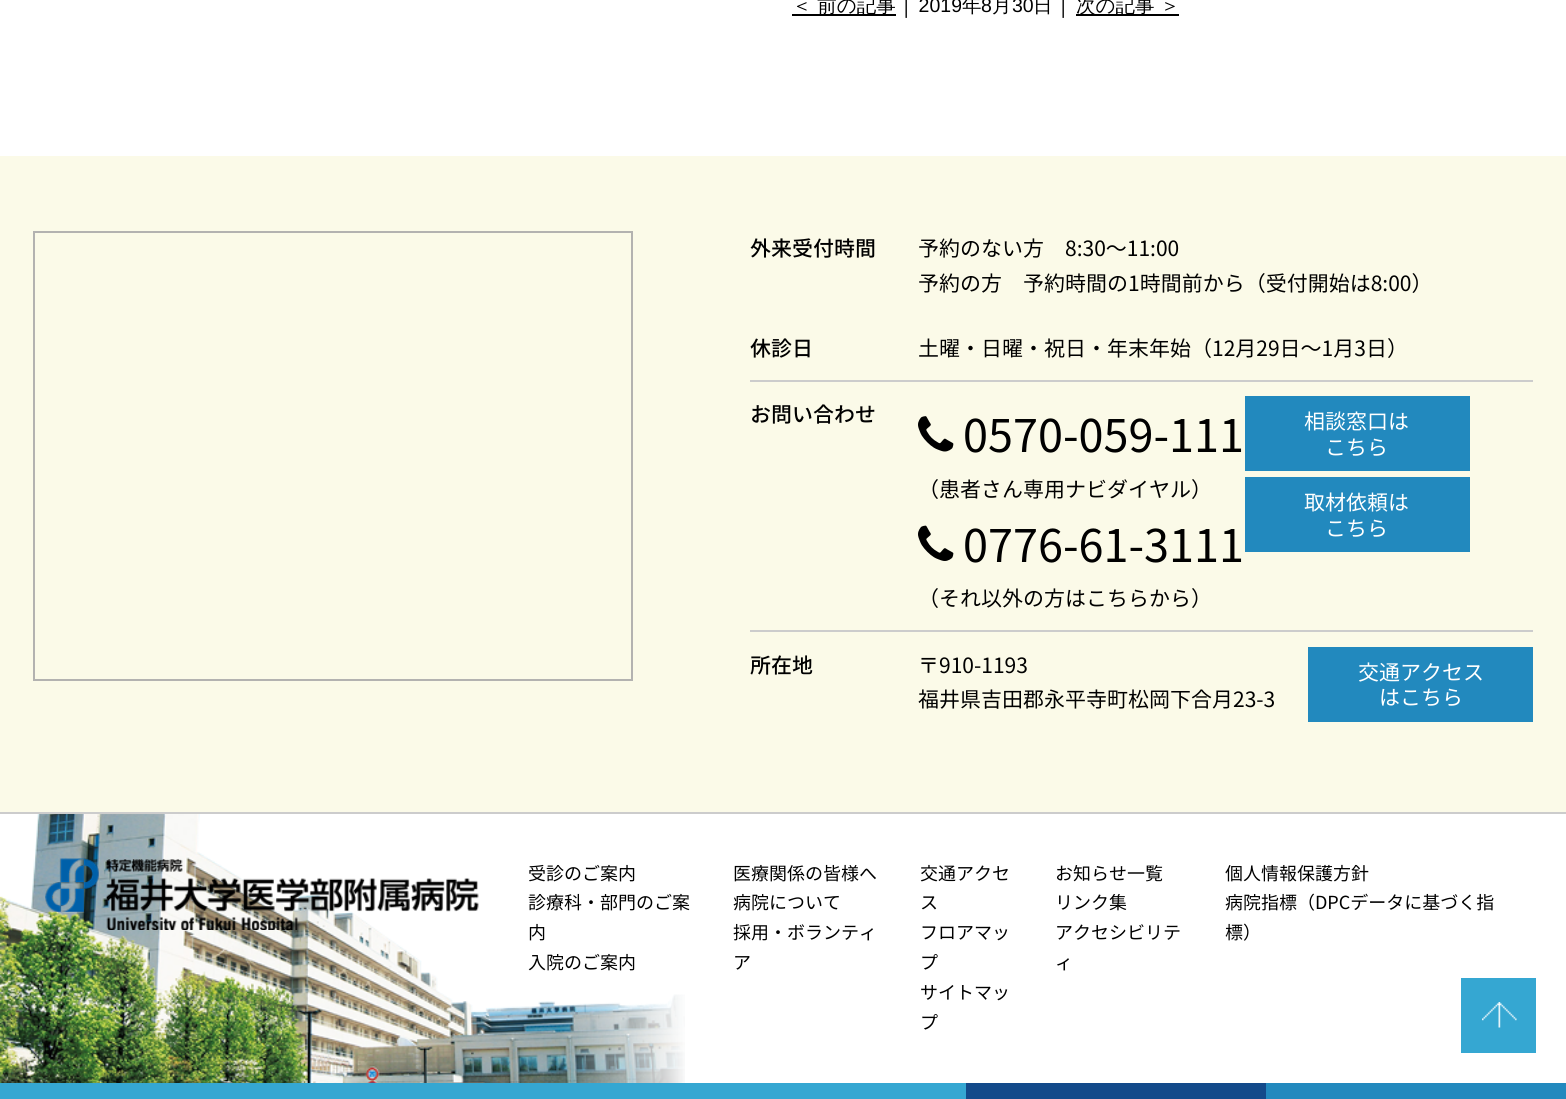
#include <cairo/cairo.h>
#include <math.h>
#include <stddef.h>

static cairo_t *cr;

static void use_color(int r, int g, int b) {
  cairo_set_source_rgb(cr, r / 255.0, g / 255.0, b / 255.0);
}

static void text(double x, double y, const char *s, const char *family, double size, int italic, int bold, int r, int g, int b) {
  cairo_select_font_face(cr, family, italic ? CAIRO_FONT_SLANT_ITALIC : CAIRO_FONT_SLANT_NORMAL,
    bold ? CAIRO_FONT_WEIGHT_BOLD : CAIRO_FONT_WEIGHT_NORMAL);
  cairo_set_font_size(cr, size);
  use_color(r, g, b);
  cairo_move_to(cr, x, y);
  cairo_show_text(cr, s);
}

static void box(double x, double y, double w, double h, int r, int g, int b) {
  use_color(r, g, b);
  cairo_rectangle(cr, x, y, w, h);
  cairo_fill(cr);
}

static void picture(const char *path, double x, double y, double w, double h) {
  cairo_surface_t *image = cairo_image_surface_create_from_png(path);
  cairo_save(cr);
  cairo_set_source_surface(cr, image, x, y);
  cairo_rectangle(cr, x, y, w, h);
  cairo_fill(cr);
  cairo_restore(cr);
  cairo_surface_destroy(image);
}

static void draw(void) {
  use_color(255, 255, 255);
  cairo_paint(cr);
  box(792, 14, 104, 2, 0, 0, 0);
  box(1076, 14, 103, 2, 0, 0, 0);
  box(0, 156, 1566, 656, 251, 250, 232);
  cairo_rectangle(cr, 34, 232, 598, 448);
  use_color(179, 178, 176);
  cairo_stroke(cr);
  box(750, 380, 783, 2, 204, 204, 204);
  box(750, 630, 783, 2, 204, 204, 204);
  picture("img_01.png", 918, 416, 36, 36);
  picture("img_02.png", 918, 525, 36, 36);
  box(1245, 396, 225, 75, 34, 137, 190);
  box(1245, 477, 225, 75, 34, 137, 190);
  box(1308, 647, 225, 75, 34, 137, 190);
  picture("img_03.png", 0, 814, 685, 269);
  box(0, 812, 1566, 2, 204, 204, 204);
  picture("img_04.png", 45, 858, 434, 72);
  box(1461, 978, 75, 75, 53, 167, 210);
  picture("img_05.png", 1482, 1002, 35, 26);
  box(0, 1083, 966, 16, 53, 167, 210);
  box(966, 1083, 300, 16, 19, 74, 138);
  box(1266, 1083, 300, 16, 34, 137, 190);
  text(792, 12, "＜ 前の記事", "WenQuanYi Zen Hei Medium", 19.5, 0, 0, 0, 0, 0);
  text(901, 12, "│ 2019", "Liberation Sans", 19.5, 0, 0, 0, 0, 0);
  text(962, 12, "年", "WenQuanYi Zen Hei Medium", 19.5, 0, 0, 0, 0, 0);
  text(981, 12, "8", "Liberation Sans", 19.5, 0, 0, 0, 0, 0);
  text(992, 12, "月", "WenQuanYi Zen Hei Medium", 19.5, 0, 0, 0, 0, 0);
  text(1012, 12, "30", "Liberation Sans", 19.5, 0, 0, 0, 0, 0);
  text(1033, 12, "日", "WenQuanYi Zen Hei Medium", 19.5, 0, 0, 0, 0, 0);
  text(1058, 12, "│", "Liberation Sans", 19.5, 0, 0, 0, 0, 0);
  text(1076, 12, "次の記事 ＞", "WenQuanYi Zen Hei Medium", 19.5, 0, 0, 0, 0, 0);
  text(750, 256, "外来受付時間", "Noto Sans JP Medium", 21, 0, 0, 0, 0, 0);
  text(918, 256, "予約のない方　8:30〜11:00", "Noto Sans JP", 21, 0, 0, 0, 0, 0);
  text(918, 291, "予約の方　予約時間の1時間前から（受付開始は8:00）", "Noto Sans JP", 21, 0, 0, 0, 0, 0);
  text(750, 356, "休診日", "Noto Sans JP Medium", 21, 0, 0, 0, 0, 0);
  text(918, 356, "土曜・日曜・祝日・年末年始（12月29日〜1月3日）", "Noto Sans JP", 21, 0, 0, 0, 0, 0);
  text(750, 422, "お問い合わせ", "Noto Sans JP Medium", 21, 0, 0, 0, 0, 0);
  text(963, 452, "0570-059-111", "Noto Sans JP", 45, 0, 0, 0, 0, 0);
  text(918, 497, "（患者さん専用ナビダイヤル）", "Noto Sans JP", 21, 0, 0, 0, 0, 0);
  text(963, 562, "0776-61-3111", "Noto Sans JP", 45, 0, 0, 0, 0, 0);
  text(918, 606, "（それ以外の方はこちらから）", "Noto Sans JP", 21, 0, 0, 0, 0, 0);
  text(1304, 429, "相談窓口は", "Noto Sans JP", 21, 0, 0, 255, 255, 255);
  text(1325, 455, "こちら", "Noto Sans JP", 21, 0, 0, 255, 255, 255);
  text(1304, 510, "取材依頼は", "Noto Sans JP", 21, 0, 0, 255, 255, 255);
  text(1325, 536, "こちら", "Noto Sans JP", 21, 0, 0, 255, 255, 255);
  text(750, 673, "所在地", "Noto Sans JP Medium", 21, 0, 0, 0, 0, 0);
  text(918, 673, "〒910-1193", "Noto Sans JP", 21, 0, 0, 0, 0, 0);
  text(918, 707, "福井県吉田郡永平寺町松岡下合月23-3", "Noto Sans JP", 21, 0, 0, 0, 0, 0);
  text(1358, 680, "交通アクセス", "Noto Sans JP", 21, 0, 0, 255, 255, 255);
  text(1379, 705, "はこちら", "Noto Sans JP", 21, 0, 0, 255, 255, 255);
  text(528, 880, "受診のご案内", "Noto Sans JP", 18, 0, 0, 0, 0, 0);
  text(528, 909, "診療科・部門のご案", "Noto Sans JP", 18, 0, 0, 0, 0, 0);
  text(528, 939, "内", "Noto Sans JP", 18, 0, 0, 0, 0, 0);
  text(528, 969, "入院のご案内", "Noto Sans JP", 18, 0, 0, 0, 0, 0);
  text(733, 880, "医療関係の皆様へ", "Noto Sans JP", 18, 0, 0, 0, 0, 0);
  text(733, 909, "病院について", "Noto Sans JP", 18, 0, 0, 0, 0, 0);
  text(733, 939, "採用・ボランティ", "Noto Sans JP", 18, 0, 0, 0, 0, 0);
  text(733, 969, "ア", "Noto Sans JP", 18, 0, 0, 0, 0, 0);
  text(920, 880, "交通アクセ", "Noto Sans JP", 18, 0, 0, 0, 0, 0);
  text(920, 909, "ス", "Noto Sans JP", 18, 0, 0, 0, 0, 0);
  text(920, 939, "フロアマッ", "Noto Sans JP", 18, 0, 0, 0, 0, 0);
  text(920, 969, "プ", "Noto Sans JP", 18, 0, 0, 0, 0, 0);
  text(920, 999, "サイトマッ", "Noto Sans JP", 18, 0, 0, 0, 0, 0);
  text(920, 1029, "プ", "Noto Sans JP", 18, 0, 0, 0, 0, 0);
  text(1055, 880, "お知らせ一覧", "Noto Sans JP", 18, 0, 0, 0, 0, 0);
  text(1055, 909, "リンク集", "Noto Sans JP", 18, 0, 0, 0, 0, 0);
  text(1055, 939, "アクセシビリテ", "Noto Sans JP", 18, 0, 0, 0, 0, 0);
  text(1055, 969, "ィ", "Noto Sans JP", 18, 0, 0, 0, 0, 0);
  text(1225, 880, "個人情報保護方針", "Noto Sans JP", 18, 0, 0, 0, 0, 0);
  text(1225, 909, "病院指標（DPCデータに基づく指", "Noto Sans JP", 18, 0, 0, 0, 0, 0);
  text(1225, 939, "標）", "Noto Sans JP", 18, 0, 0, 0, 0, 0);
}

int main(void) {
  cairo_surface_t *surface = cairo_image_surface_create(CAIRO_FORMAT_RGB24, 1566, 1099);
  cr = cairo_create(surface);
  cairo_font_options_t *options = cairo_font_options_create();
  cairo_font_options_set_hint_metrics(options, CAIRO_HINT_METRICS_OFF);
  cairo_font_options_set_hint_style(options, CAIRO_HINT_STYLE_NONE);
  cairo_set_font_options(cr, options);
  cairo_set_miter_limit(cr, 4);
  draw();
  cairo_surface_write_to_png(surface, "out.png");
  cairo_font_options_destroy(options);
  cairo_destroy(cr);
  cairo_surface_destroy(surface);
  return 0;
}
